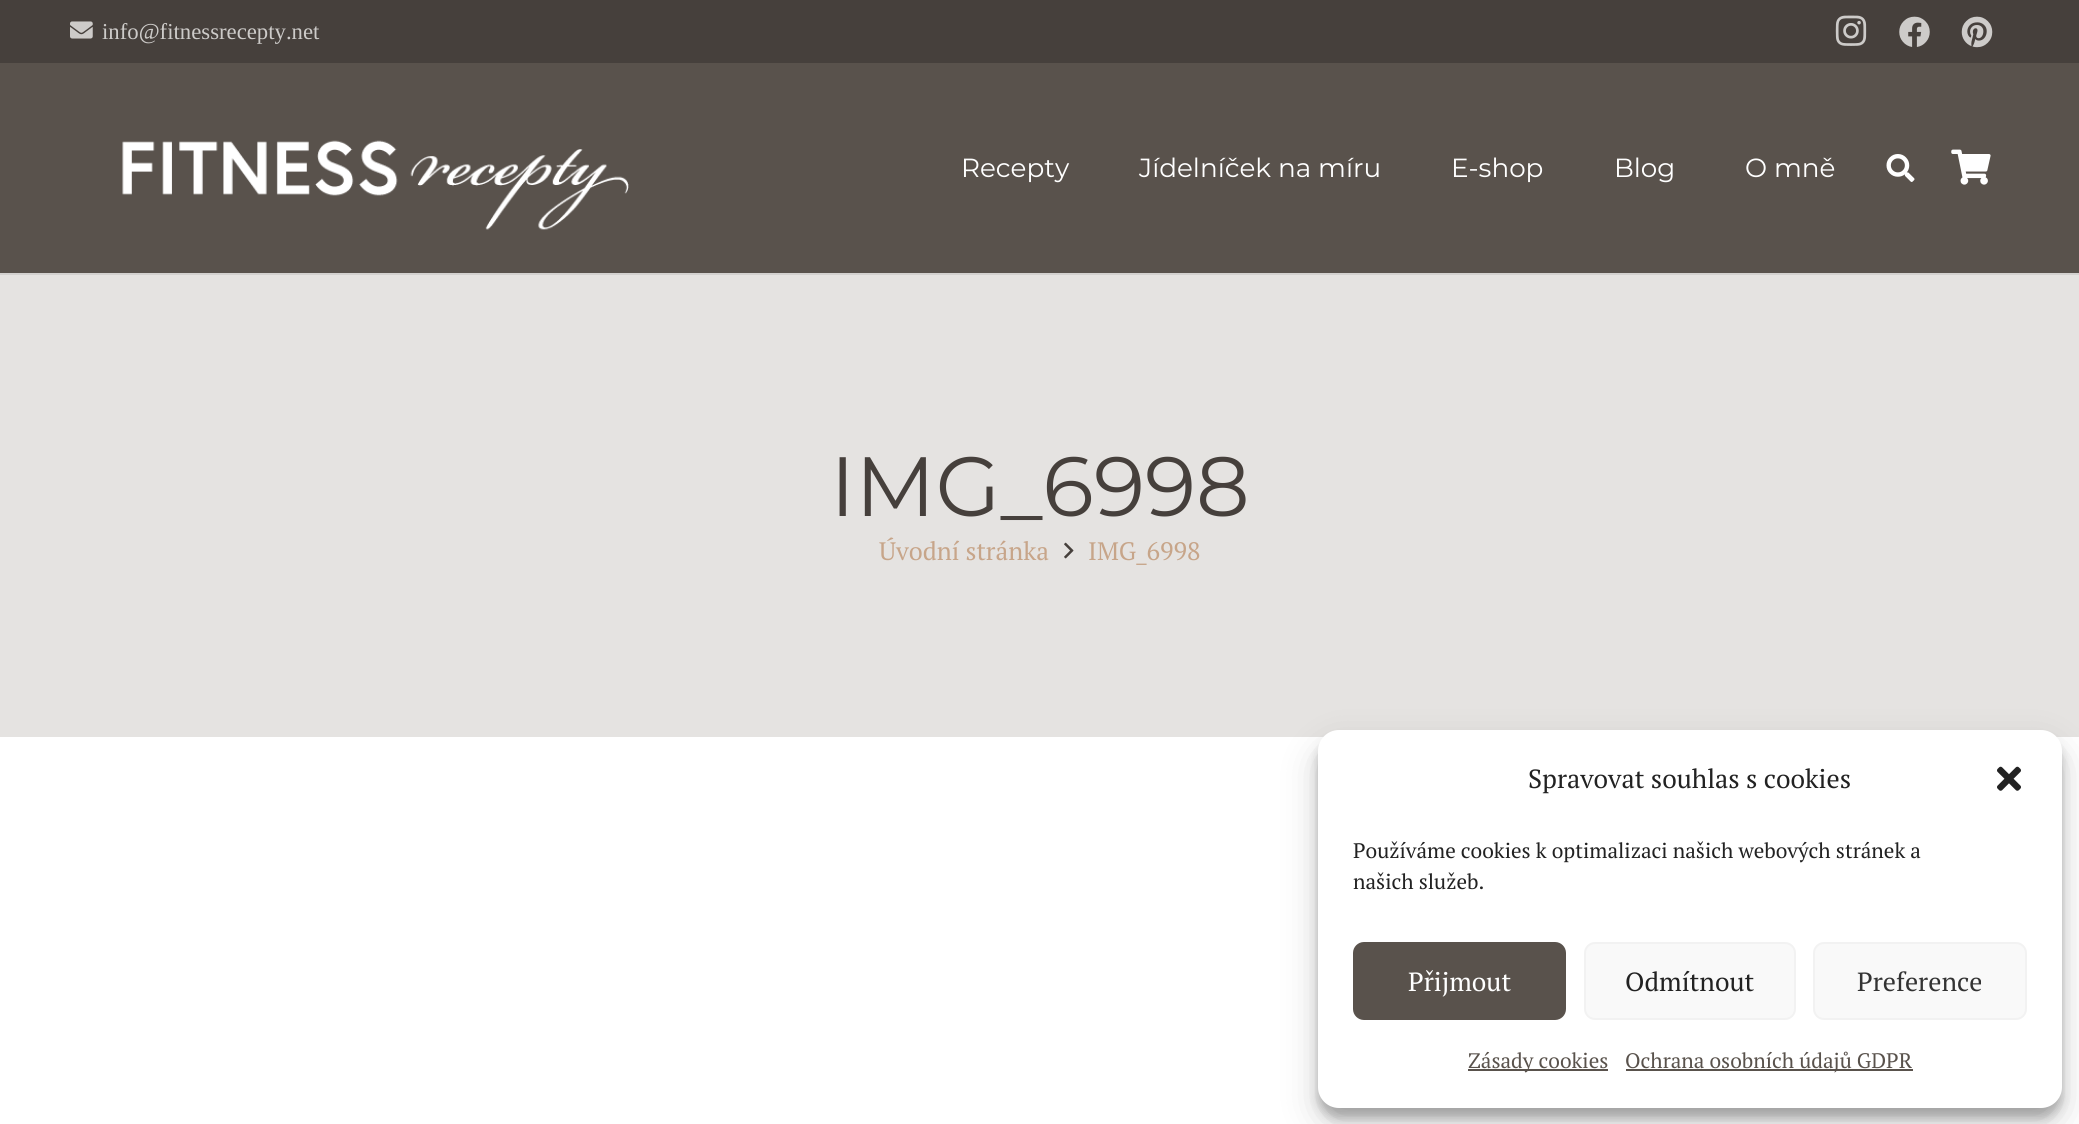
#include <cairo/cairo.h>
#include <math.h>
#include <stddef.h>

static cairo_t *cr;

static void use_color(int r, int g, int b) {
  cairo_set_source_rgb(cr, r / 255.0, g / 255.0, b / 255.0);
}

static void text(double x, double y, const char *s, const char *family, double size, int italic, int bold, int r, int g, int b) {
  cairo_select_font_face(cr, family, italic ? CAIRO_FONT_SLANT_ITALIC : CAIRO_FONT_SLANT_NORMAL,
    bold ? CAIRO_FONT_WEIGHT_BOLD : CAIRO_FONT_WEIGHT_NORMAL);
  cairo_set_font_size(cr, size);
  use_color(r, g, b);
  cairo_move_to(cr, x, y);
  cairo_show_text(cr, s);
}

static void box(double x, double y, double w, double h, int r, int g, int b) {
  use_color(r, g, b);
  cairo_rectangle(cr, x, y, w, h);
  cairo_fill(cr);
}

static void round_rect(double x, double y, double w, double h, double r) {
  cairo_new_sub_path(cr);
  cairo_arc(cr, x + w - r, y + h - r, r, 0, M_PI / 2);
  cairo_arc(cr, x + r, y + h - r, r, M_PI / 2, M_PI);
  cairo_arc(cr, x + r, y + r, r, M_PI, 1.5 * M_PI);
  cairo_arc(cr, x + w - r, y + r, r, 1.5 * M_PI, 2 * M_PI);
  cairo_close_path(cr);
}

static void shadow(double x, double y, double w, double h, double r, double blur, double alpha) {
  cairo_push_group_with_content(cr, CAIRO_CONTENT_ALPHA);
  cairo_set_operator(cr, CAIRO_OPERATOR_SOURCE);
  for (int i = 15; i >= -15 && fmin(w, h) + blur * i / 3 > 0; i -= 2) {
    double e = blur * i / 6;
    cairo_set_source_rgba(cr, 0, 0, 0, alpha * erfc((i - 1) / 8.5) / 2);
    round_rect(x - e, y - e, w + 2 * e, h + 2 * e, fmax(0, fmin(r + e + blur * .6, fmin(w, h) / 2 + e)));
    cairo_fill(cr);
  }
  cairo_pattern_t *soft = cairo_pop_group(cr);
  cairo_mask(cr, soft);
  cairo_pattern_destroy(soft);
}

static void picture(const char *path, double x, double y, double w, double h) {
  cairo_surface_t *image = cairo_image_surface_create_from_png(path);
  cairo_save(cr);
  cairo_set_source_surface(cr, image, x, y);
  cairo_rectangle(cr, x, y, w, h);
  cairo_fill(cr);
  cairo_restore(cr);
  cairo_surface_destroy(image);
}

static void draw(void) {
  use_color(255, 255, 255);
  cairo_paint(cr);
  box(0, 0, 2079, 63, 70, 64, 60);
  picture("img_01.png", 70, 21, 23, 18);
  picture("img_02.png", 1835, 15, 32, 31);
  picture("img_03.png", 1899, 16, 31, 31);
  picture("img_04.png", 1961, 16, 32, 32);
  box(0, 273, 2079, 2, 211, 209, 207);
  box(0, 63, 2079, 210, 89, 82, 76);
  picture("img_05.png", 122, 140, 507, 90);
  picture("img_06.png", 1886, 154, 29, 28);
  picture("img_07.png", 1951, 149, 40, 36);
  box(0, 275, 2079, 462, 229, 227, 225);
  picture("img_08.png", 1064, 542, 10, 17);
  use_color(0, 0, 0);
  shadow(1318, 740, 744, 378, 21, 5, 0.23);
  shadow(1318, 747, 744, 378, 21, 17.5, 0.19);
  use_color(255, 255, 255);
  round_rect(1318, 730, 744, 378, 21);
  cairo_fill(cr);
  picture("img_09.png", 1997, 766, 24, 25);
  use_color(89, 82, 76);
  round_rect(1354, 943, 211, 76, 10);
  cairo_fill_preserve(cr);
  cairo_stroke(cr);
  use_color(249, 249, 249);
  round_rect(1585, 943, 210, 76, 10);
  cairo_fill_preserve(cr);
  use_color(242, 242, 242);
  cairo_stroke(cr);
  use_color(249, 249, 249);
  round_rect(1814, 943, 212, 76, 10);
  cairo_fill_preserve(cr);
  use_color(242, 242, 242);
  cairo_stroke(cr);
  box(1468, 1069, 140, 2, 89, 82, 76);
  box(1626, 1069, 287, 2, 89, 82, 76);
  text(102, 39, "info@fitnessrecepty.net", "Liberation Serif", 22.75, 0, 0, 205, 203, 201);
  text(961, 177, "Recepty", "Montserrat", 26.25, 0, 0, 255, 255, 255);
  text(1139, 177, "Jídelníček na míru", "Montserrat", 26.25, 0, 0, 255, 255, 255);
  text(1451, 177, "E-shop", "Montserrat", 26.25, 0, 0, 255, 255, 255);
  text(1614, 177, "Blog", "Montserrat", 26.25, 0, 0, 255, 255, 255);
  text(1745, 177, "O mně", "Montserrat", 26.25, 0, 0, 255, 255, 255);
  text(830, 516, "IMG_6998", "Montserrat", 84, 0, 0, 70, 64, 60);
  text(879, 560, "Úvodní stránka", "PT Serif", 25.25, 0, 0, 199, 165, 137);
  text(1088, 560, "IMG_6998", "PT Serif", 25.25, 0, 0, 199, 165, 137);
  text(1528, 788, "Spravovat souhlas s cookies", "PT Serif", 26.25, 0, 0, 34, 34, 34);
  text(1353, 858, "Používáme cookies k optimalizaci našich webových stránek a", "PT Serif", 21, 0, 0, 34, 34, 34);
  text(1353, 889, "našich služeb.", "PT Serif", 21, 0, 0, 34, 34, 34);
  text(1408, 991, "Přijmout", "PT Serif", 26.25, 0, 0, 255, 255, 255);
  text(1625, 991, "Odmítnout", "PT Serif", 26.25, 0, 0, 34, 34, 34);
  text(1857, 991, "Preference", "PT Serif", 26.25, 0, 0, 51, 51, 51);
  text(1468, 1068, "Zásady cookies", "PT Serif", 21, 0, 0, 89, 82, 76);
  text(1625, 1068, "Ochrana osobních údajů GDPR", "PT Serif", 21, 0, 0, 89, 82, 76);
}

int main(void) {
  cairo_surface_t *surface = cairo_image_surface_create(CAIRO_FORMAT_RGB24, 2079, 1124);
  cr = cairo_create(surface);
  cairo_font_options_t *options = cairo_font_options_create();
  cairo_font_options_set_hint_metrics(options, CAIRO_HINT_METRICS_OFF);
  cairo_font_options_set_hint_style(options, CAIRO_HINT_STYLE_NONE);
  cairo_set_font_options(cr, options);
  cairo_set_miter_limit(cr, 4);
  draw();
  cairo_surface_write_to_png(surface, "out.png");
  cairo_font_options_destroy(options);
  cairo_destroy(cr);
  cairo_surface_destroy(surface);
  return 0;
}
